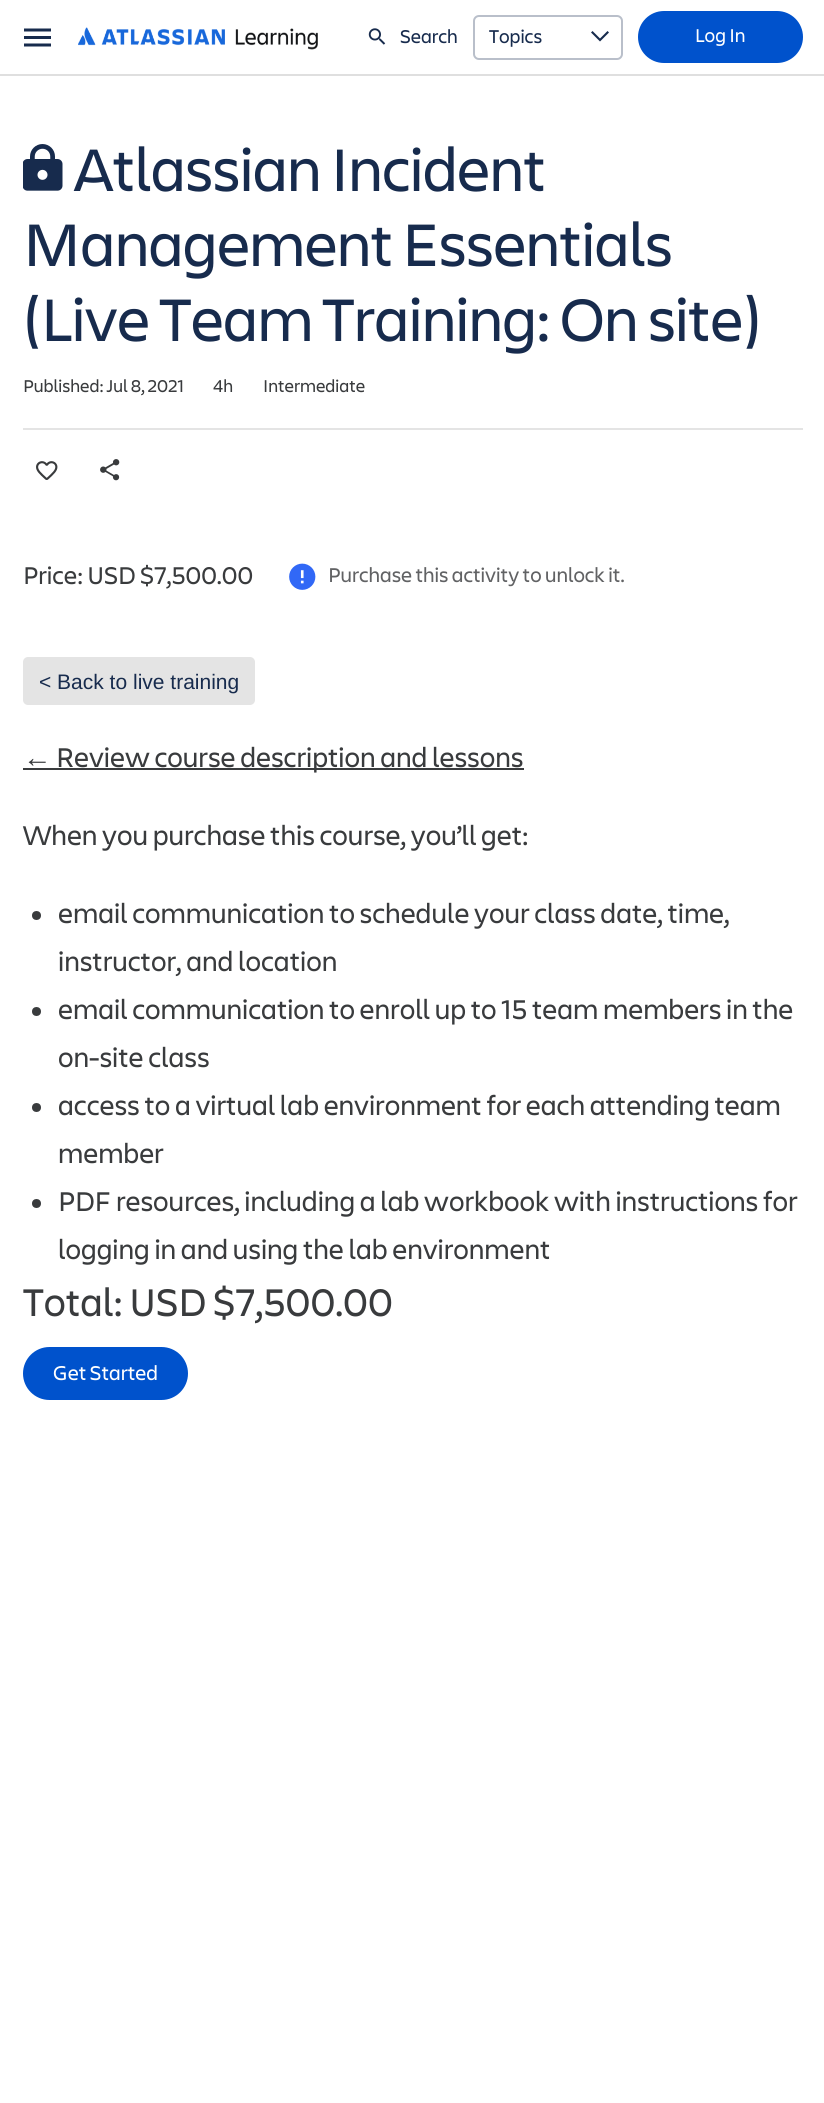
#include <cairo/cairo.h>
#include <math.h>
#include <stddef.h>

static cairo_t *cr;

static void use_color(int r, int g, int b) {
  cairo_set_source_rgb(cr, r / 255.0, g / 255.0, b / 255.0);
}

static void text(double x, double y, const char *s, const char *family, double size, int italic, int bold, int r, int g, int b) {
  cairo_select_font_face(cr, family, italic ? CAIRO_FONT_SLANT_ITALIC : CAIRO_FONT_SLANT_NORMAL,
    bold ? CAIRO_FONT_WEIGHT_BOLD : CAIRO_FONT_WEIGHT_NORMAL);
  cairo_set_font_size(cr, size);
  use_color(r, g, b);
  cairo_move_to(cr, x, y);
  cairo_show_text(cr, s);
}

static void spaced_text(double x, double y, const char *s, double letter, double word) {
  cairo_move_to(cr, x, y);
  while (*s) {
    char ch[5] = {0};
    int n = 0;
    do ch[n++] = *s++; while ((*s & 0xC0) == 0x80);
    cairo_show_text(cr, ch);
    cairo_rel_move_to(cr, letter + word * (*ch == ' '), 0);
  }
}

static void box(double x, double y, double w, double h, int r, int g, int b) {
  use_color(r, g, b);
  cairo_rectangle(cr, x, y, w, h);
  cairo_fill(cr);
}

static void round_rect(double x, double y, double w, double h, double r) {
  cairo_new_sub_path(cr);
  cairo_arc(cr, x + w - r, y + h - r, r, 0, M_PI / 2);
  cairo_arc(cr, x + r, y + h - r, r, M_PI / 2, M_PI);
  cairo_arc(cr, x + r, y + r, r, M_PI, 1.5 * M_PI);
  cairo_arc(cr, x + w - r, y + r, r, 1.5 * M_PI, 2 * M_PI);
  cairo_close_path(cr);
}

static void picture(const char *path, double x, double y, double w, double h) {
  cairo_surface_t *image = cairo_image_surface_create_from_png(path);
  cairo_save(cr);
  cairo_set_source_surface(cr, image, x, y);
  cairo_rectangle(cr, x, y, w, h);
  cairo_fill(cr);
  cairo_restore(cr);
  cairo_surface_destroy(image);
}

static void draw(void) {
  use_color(255, 255, 255);
  cairo_paint(cr);
  box(0, 74, 824, 2, 223, 223, 223);
  picture("img_01.png", 24, 28, 27, 19);
  picture("img_02.png", 78, 27, 240, 23);
  picture("img_03.png", 368, 28, 18, 17);
  round_rect(474, 16, 148, 43, 5);
  use_color(185, 191, 202);
  cairo_stroke(cr);
  use_color(23, 43, 77);
  cairo_new_path(cr);
  cairo_move_to(cr, 592.5, 31);
  cairo_line_to(cr, 600, 38.5);
  cairo_line_to(cr, 607.5, 31);
  cairo_line_to(cr, 609, 32.5);
  cairo_line_to(cr, 600, 41.5);
  cairo_line_to(cr, 591, 32.5);
  cairo_close_path(cr);
  cairo_fill(cr);
  use_color(0, 82, 204);
  round_rect(639, 12, 163, 50, 25);
  cairo_fill_preserve(cr);
  cairo_stroke(cr);
  picture("img_04.png", 23, 144, 40, 47);
  box(23, 428, 780, 2, 228, 228, 228);
  picture("img_05.png", 36, 461, 22, 19);
  picture("img_06.png", 100, 459, 20, 22);
  picture("img_07.png", 289, 563, 27, 27);
  round_rect(23, 657, 232, 48, 5);
  cairo_fill(cr);
  box(23, 768, 501, 2, 57, 59, 61);
  cairo_arc(cr, 36.5, 915.5, 4.5, 0, 2 * M_PI);
  cairo_fill(cr);
  cairo_arc(cr, 36.5, 1011.5, 4.5, 0, 2 * M_PI);
  cairo_fill(cr);
  cairo_arc(cr, 36.5, 1107.5, 4.5, 0, 2 * M_PI);
  cairo_fill(cr);
  cairo_arc(cr, 36.5, 1203.5, 4.5, 0, 2 * M_PI);
  cairo_fill(cr);
  use_color(0, 82, 204);
  round_rect(24, 1348, 163, 51, 25.5);
  cairo_fill_preserve(cr);
  cairo_stroke(cr);
  text(400, 43, "Search", "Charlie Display", 19.5, 0, 0, 23, 43, 77);
  text(489, 43, "Topics", "Charlie Display", 19.5, 0, 0, 23, 43, 77);
  text(695, 42, "Log In", "Charlie Display", 19.5, 0, 0, 255, 255, 255);
  cairo_set_font_size(cr, 63);
  use_color(23, 43, 77);
  spaced_text(74, 191, "Atlassian Incident", -0.6, 0);
  spaced_text(23, 266, "Management Essentials", -0.6, 0);
  spaced_text(23, 341, "(Live Team Training: On site)", -0.6, 0);
  text(23, 392, "Published: Jul 8, 2021", "Charlie Display", 18, 0, 0, 57, 59, 61);
  text(213, 392, "4h", "Charlie Display", 18, 0, 0, 57, 59, 61);
  text(263, 392, "Intermediate", "Charlie Display", 18, 0, 0, 57, 59, 61);
  text(23, 584, "Price: USD $7,500.00", "Charlie Display", 25.5, 0, 0, 57, 59, 61);
  text(328, 582, "Purchase this activity to unlock it.", "Charlie Display", 21, 0, 0, 97, 98, 100);
  text(39, 689, "< Back to live training", "Liberation Sans", 21, 0, 0, 23, 43, 77);
  text(23, 767, "←", "Liberation Sans", 28.5, 0, 0, 57, 59, 61);
  text(56, 767, "Review course description and lessons", "Charlie Display", 28.5, 0, 0, 57, 59, 61);
  text(23, 845, "When you purchase this course, you’ll get:", "Charlie Display", 28.5, 0, 0, 57, 59, 61);
  text(58, 923, "email communication to schedule your class date, time,", "Charlie Display", 28.5, 0, 0, 57, 59, 61);
  text(58, 971, "instructor, and location", "Charlie Display", 28.5, 0, 0, 57, 59, 61);
  text(58, 1019, "email communication to enroll up to 15 team members in the", "Charlie Display", 28.5, 0, 0, 57, 59, 61);
  text(58, 1067, "on-site class", "Charlie Display", 28.5, 0, 0, 57, 59, 61);
  text(58, 1115, "access to a virtual lab environment for each attending team", "Charlie Display", 28.5, 0, 0, 57, 59, 61);
  text(58, 1163, "member", "Charlie Display", 28.5, 0, 0, 57, 59, 61);
  text(58, 1211, "PDF resources, including a lab workbook with instructions for", "Charlie Display", 28.5, 0, 0, 57, 59, 61);
  text(58, 1259, "logging in and using the lab environment", "Charlie Display", 28.5, 0, 0, 57, 59, 61);
  text(23, 1316, "Total: USD $7,500.00", "Charlie Display", 40.5, 0, 0, 57, 59, 61);
  text(53, 1380, "Get Started", "Charlie Display", 21, 0, 0, 255, 255, 255);
}

int main(void) {
  cairo_surface_t *surface = cairo_image_surface_create(CAIRO_FORMAT_RGB24, 824, 2103);
  cr = cairo_create(surface);
  cairo_font_options_t *options = cairo_font_options_create();
  cairo_font_options_set_hint_metrics(options, CAIRO_HINT_METRICS_OFF);
  cairo_font_options_set_hint_style(options, CAIRO_HINT_STYLE_NONE);
  cairo_set_font_options(cr, options);
  cairo_set_miter_limit(cr, 4);
  draw();
  cairo_surface_write_to_png(surface, "out.png");
  cairo_font_options_destroy(options);
  cairo_destroy(cr);
  cairo_surface_destroy(surface);
  return 0;
}
